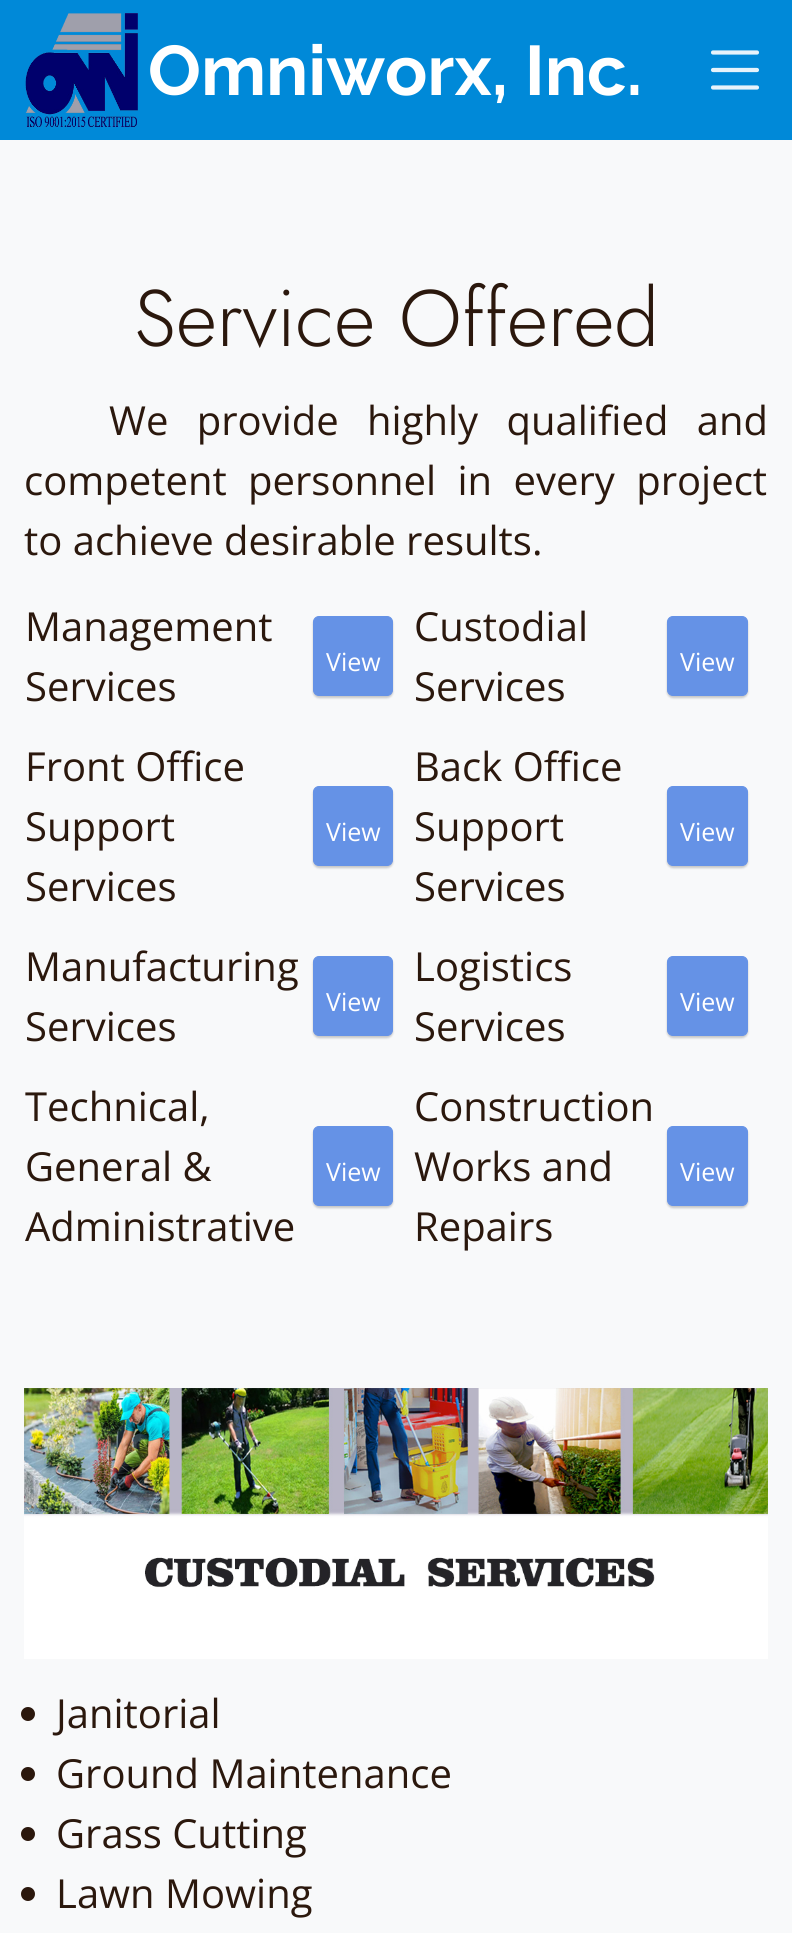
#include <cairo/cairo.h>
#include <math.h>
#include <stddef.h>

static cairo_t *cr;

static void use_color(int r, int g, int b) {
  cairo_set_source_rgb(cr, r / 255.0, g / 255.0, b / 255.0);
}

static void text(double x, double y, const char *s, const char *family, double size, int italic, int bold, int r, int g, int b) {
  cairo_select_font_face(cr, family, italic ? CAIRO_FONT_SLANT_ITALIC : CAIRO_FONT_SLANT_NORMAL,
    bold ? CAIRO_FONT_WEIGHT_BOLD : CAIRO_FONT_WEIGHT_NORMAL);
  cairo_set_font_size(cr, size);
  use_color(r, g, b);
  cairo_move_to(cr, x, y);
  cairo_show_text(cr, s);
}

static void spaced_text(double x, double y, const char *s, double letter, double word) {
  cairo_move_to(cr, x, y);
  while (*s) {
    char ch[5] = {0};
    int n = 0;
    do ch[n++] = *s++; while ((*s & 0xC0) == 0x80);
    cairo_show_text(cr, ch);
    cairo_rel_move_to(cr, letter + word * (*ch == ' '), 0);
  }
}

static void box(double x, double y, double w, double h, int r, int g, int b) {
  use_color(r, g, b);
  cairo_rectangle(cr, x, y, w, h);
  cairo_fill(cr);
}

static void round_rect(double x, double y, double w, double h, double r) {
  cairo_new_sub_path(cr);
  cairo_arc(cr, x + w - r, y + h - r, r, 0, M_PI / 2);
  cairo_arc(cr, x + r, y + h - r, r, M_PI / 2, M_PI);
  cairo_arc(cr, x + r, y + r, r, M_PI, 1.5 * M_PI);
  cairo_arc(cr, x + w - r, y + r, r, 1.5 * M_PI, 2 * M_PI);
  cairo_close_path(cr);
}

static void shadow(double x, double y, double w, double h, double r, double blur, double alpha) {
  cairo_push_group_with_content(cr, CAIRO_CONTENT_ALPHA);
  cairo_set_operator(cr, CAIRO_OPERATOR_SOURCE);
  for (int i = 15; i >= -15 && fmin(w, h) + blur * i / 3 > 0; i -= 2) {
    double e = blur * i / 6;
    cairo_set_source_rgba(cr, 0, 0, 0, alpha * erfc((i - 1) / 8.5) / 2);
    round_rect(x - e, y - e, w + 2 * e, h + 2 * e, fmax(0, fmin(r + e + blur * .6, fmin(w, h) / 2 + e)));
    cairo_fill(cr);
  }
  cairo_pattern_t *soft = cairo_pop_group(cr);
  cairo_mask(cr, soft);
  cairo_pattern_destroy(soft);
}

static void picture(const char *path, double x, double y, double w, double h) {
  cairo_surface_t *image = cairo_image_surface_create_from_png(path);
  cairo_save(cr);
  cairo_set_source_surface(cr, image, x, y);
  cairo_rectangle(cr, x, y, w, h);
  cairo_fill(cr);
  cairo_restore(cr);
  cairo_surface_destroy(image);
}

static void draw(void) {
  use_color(248, 249, 250);
  cairo_paint(cr);
  box(0, 0, 792, 140, 0, 137, 216);
  picture("img_01.png", 25, 13, 113, 114);
  picture("img_02.png", 711, 50, 48, 40);
  use_color(0, 0, 0);
  shadow(313, 618, 80, 80, 6, 1, 0.2);
  use_color(101, 146, 230);
  round_rect(313.5, 616.5, 79, 79, 5.5);
  cairo_fill_preserve(cr);
  cairo_set_line_width(cr, 1);
  cairo_stroke(cr);
  use_color(0, 0, 0);
  shadow(667, 618, 81, 80, 6, 1, 0.2);
  use_color(101, 146, 230);
  round_rect(667.5, 616.5, 80, 79, 5.5);
  cairo_fill_preserve(cr);
  cairo_stroke(cr);
  use_color(0, 0, 0);
  shadow(313, 788, 80, 80, 6, 1, 0.2);
  use_color(101, 146, 230);
  round_rect(313.5, 786.5, 79, 79, 5.5);
  cairo_fill_preserve(cr);
  cairo_stroke(cr);
  use_color(0, 0, 0);
  shadow(667, 788, 81, 80, 6, 1, 0.2);
  use_color(101, 146, 230);
  round_rect(667.5, 786.5, 80, 79, 5.5);
  cairo_fill_preserve(cr);
  cairo_stroke(cr);
  use_color(0, 0, 0);
  shadow(313, 958, 80, 80, 6, 1, 0.2);
  use_color(101, 146, 230);
  round_rect(313.5, 956.5, 79, 79, 5.5);
  cairo_fill_preserve(cr);
  cairo_stroke(cr);
  use_color(0, 0, 0);
  shadow(667, 958, 81, 80, 6, 1, 0.2);
  use_color(101, 146, 230);
  round_rect(667.5, 956.5, 80, 79, 5.5);
  cairo_fill_preserve(cr);
  cairo_stroke(cr);
  use_color(0, 0, 0);
  shadow(313, 1128, 80, 80, 6, 1, 0.2);
  use_color(101, 146, 230);
  round_rect(313.5, 1126.5, 79, 79, 5.5);
  cairo_fill_preserve(cr);
  cairo_stroke(cr);
  use_color(0, 0, 0);
  shadow(667, 1128, 81, 80, 6, 1, 0.2);
  use_color(101, 146, 230);
  round_rect(667.5, 1126.5, 80, 79, 5.5);
  cairo_fill_preserve(cr);
  cairo_stroke(cr);
  picture("img_03.png", 24, 1388, 744, 271);
  use_color(43, 24, 13);
  cairo_arc(cr, 28, 1714, 7, 0, 2 * M_PI);
  cairo_fill(cr);
  cairo_arc(cr, 28, 1774, 7, 0, 2 * M_PI);
  cairo_fill(cr);
  cairo_arc(cr, 28, 1834, 7, 0, 2 * M_PI);
  cairo_fill(cr);
  cairo_arc(cr, 28, 1894, 7, 0, 2 * M_PI);
  cairo_fill(cr);
  text(148, 95, "Omniworx, Inc.", "Raleway", 70, 0, 1, 255, 255, 255);
  text(134, 346, "Service Offered", "Jost Light", 80, 0, 0, 43, 24, 13);
  cairo_select_font_face(cr, "Open Sans", CAIRO_FONT_SLANT_NORMAL, CAIRO_FONT_WEIGHT_NORMAL);
  cairo_set_font_size(cr, 40);
  spaced_text(109, 435, "We provide highly qualified and", 0, 18);
  spaced_text(24, 495, "competent personnel in every project", 0, 11);
  text(24, 555, "to achieve desirable results.", "Open Sans", 40, 0, 0, 43, 24, 13);
  text(25, 641, "Management", "Open Sans", 40, 0, 0, 43, 24, 13);
  text(25, 701, "Services", "Open Sans", 40, 0, 0, 43, 24, 13);
  text(326, 671, "View", "Open Sans", 25, 0, 0, 255, 255, 255);
  text(414, 641, "Custodial", "Open Sans", 40, 0, 0, 43, 24, 13);
  text(414, 701, "Services", "Open Sans", 40, 0, 0, 43, 24, 13);
  text(680, 671, "View", "Open Sans", 25, 0, 0, 255, 255, 255);
  text(25, 781, "Front Office", "Open Sans", 40, 0, 0, 43, 24, 13);
  text(25, 841, "Support", "Open Sans", 40, 0, 0, 43, 24, 13);
  text(25, 901, "Services", "Open Sans", 40, 0, 0, 43, 24, 13);
  text(326, 841, "View", "Open Sans", 25, 0, 0, 255, 255, 255);
  text(414, 781, "Back Office", "Open Sans", 40, 0, 0, 43, 24, 13);
  text(414, 841, "Support", "Open Sans", 40, 0, 0, 43, 24, 13);
  text(414, 901, "Services", "Open Sans", 40, 0, 0, 43, 24, 13);
  text(680, 841, "View", "Open Sans", 25, 0, 0, 255, 255, 255);
  text(25, 981, "Manufacturing", "Open Sans", 40, 0, 0, 43, 24, 13);
  text(25, 1041, "Services", "Open Sans", 40, 0, 0, 43, 24, 13);
  text(326, 1011, "View", "Open Sans", 25, 0, 0, 255, 255, 255);
  text(414, 981, "Logistics", "Open Sans", 40, 0, 0, 43, 24, 13);
  text(414, 1041, "Services", "Open Sans", 40, 0, 0, 43, 24, 13);
  text(680, 1011, "View", "Open Sans", 25, 0, 0, 255, 255, 255);
  text(25, 1121, "Technical,", "Open Sans", 40, 0, 0, 43, 24, 13);
  text(25, 1181, "General &", "Open Sans", 40, 0, 0, 43, 24, 13);
  text(25, 1241, "Administrative", "Open Sans", 40, 0, 0, 43, 24, 13);
  text(326, 1181, "View", "Open Sans", 25, 0, 0, 255, 255, 255);
  text(414, 1121, "Construction", "Open Sans", 40, 0, 0, 43, 24, 13);
  text(414, 1181, "Works and", "Open Sans", 40, 0, 0, 43, 24, 13);
  text(414, 1241, "Repairs", "Open Sans", 40, 0, 0, 43, 24, 13);
  text(680, 1181, "View", "Open Sans", 25, 0, 0, 255, 255, 255);
  text(56, 1728, "Janitorial", "Open Sans", 40, 0, 0, 43, 24, 13);
  text(56, 1788, "Ground Maintenance", "Open Sans", 40, 0, 0, 43, 24, 13);
  text(56, 1848, "Grass Cutting", "Open Sans", 40, 0, 0, 43, 24, 13);
  text(56, 1908, "Lawn Mowing", "Open Sans", 40, 0, 0, 43, 24, 13);
}

int main(void) {
  cairo_surface_t *surface = cairo_image_surface_create(CAIRO_FORMAT_RGB24, 792, 1933);
  cr = cairo_create(surface);
  cairo_font_options_t *options = cairo_font_options_create();
  cairo_font_options_set_hint_metrics(options, CAIRO_HINT_METRICS_OFF);
  cairo_font_options_set_hint_style(options, CAIRO_HINT_STYLE_NONE);
  cairo_set_font_options(cr, options);
  cairo_set_miter_limit(cr, 4);
  draw();
  cairo_surface_write_to_png(surface, "out.png");
  cairo_font_options_destroy(options);
  cairo_destroy(cr);
  cairo_surface_destroy(surface);
  return 0;
}
